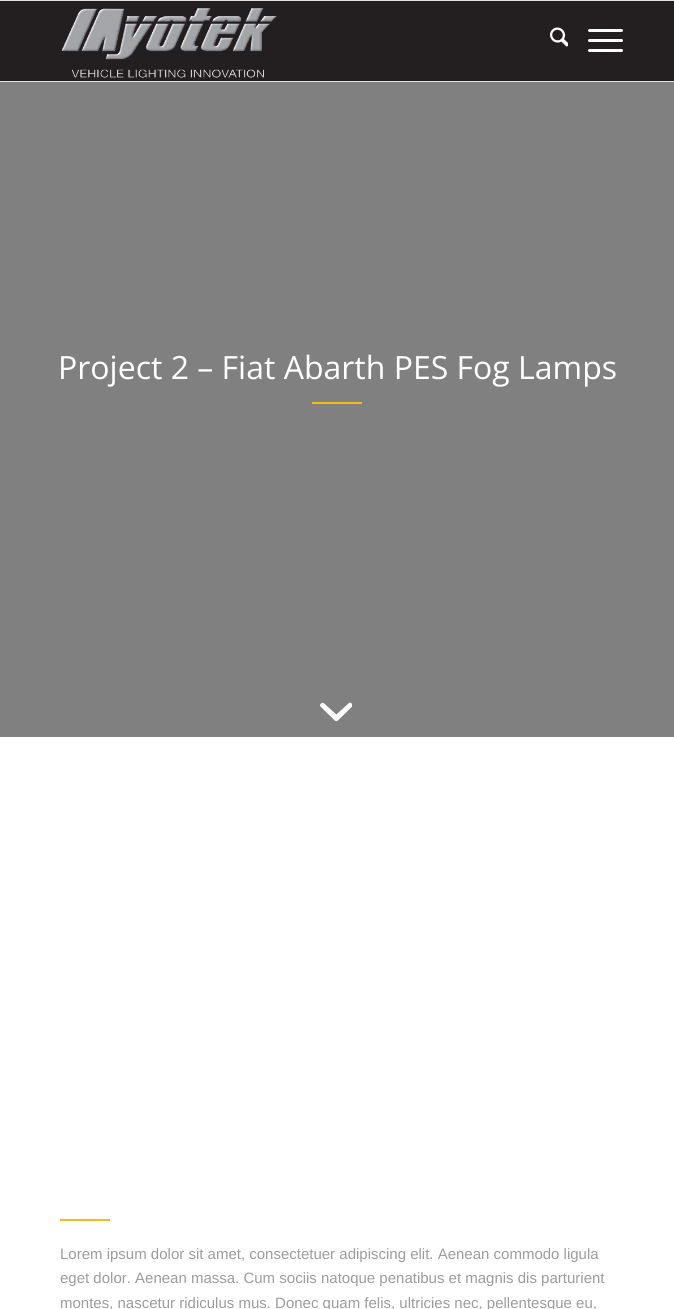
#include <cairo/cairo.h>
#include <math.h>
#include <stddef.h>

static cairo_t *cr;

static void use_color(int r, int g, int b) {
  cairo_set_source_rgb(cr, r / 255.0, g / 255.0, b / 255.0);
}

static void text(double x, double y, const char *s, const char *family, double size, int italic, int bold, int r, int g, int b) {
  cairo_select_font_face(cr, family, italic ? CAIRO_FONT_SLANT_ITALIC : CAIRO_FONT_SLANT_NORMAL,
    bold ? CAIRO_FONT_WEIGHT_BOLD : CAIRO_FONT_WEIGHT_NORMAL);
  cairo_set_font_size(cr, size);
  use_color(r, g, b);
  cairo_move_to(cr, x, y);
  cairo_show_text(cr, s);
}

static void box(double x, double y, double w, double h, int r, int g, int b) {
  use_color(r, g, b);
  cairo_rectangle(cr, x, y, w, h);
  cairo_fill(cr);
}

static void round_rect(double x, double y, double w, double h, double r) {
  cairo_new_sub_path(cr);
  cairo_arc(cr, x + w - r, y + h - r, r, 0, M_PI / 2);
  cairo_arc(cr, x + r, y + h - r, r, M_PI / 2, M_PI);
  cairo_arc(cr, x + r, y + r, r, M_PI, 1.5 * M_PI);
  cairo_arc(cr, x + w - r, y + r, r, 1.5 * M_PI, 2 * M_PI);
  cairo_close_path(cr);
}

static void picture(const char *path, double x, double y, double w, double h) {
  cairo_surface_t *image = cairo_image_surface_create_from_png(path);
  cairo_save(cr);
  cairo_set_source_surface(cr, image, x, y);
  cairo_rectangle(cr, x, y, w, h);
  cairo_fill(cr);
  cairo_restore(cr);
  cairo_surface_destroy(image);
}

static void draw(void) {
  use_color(255, 255, 255);
  cairo_paint(cr);
  box(0, 0, 674, 1, 225, 225, 225);
  box(0, 81, 674, 1, 225, 225, 225);
  box(0, 1, 674, 80, 35, 31, 32);
  picture("img_01.png", 61, 8, 216, 70);
  picture("img_02.png", 550, 27, 18, 20);
  use_color(255, 255, 255);
  round_rect(588, 39, 35, 3, 1.5);
  cairo_fill(cr);
  round_rect(588, 29, 35, 3, 1.5);
  cairo_fill(cr);
  round_rect(588, 49, 35, 3, 1.5);
  cairo_fill(cr);
  box(0, 82, 674, 655, 128, 128, 128);
  box(312, 402, 50, 2, 239, 187, 32);
  picture("img_03.png", 320, 702, 32, 20);
  box(60, 1219, 50, 2, 239, 187, 32);
  text(58, 379, "Project 2 – Fiat Abarth PES Fog Lamps", "Open Sans", 32, 0, 0, 255, 255, 255);
  text(60, 1259, "Lorem ipsum dolor sit amet, consectetuer adipiscing elit. Aenean commodo ligula", "Liberation Sans", 15, 0, 0, 156, 156, 156);
  text(60, 1283, "eget dolor. Aenean massa. Cum sociis natoque penatibus et magnis dis parturient", "Liberation Sans", 15, 0, 0, 156, 156, 156);
  text(60, 1308, "montes, nascetur ridiculus mus. Donec quam felis, ultricies nec, pellentesque eu,", "Liberation Sans", 15, 0, 0, 156, 156, 156);
}

int main(void) {
  cairo_surface_t *surface = cairo_image_surface_create(CAIRO_FORMAT_RGB24, 674, 1309);
  cr = cairo_create(surface);
  cairo_font_options_t *options = cairo_font_options_create();
  cairo_font_options_set_hint_metrics(options, CAIRO_HINT_METRICS_OFF);
  cairo_font_options_set_hint_style(options, CAIRO_HINT_STYLE_NONE);
  cairo_set_font_options(cr, options);
  cairo_set_miter_limit(cr, 4);
  draw();
  cairo_surface_write_to_png(surface, "out.png");
  cairo_font_options_destroy(options);
  cairo_destroy(cr);
  cairo_surface_destroy(surface);
  return 0;
}
